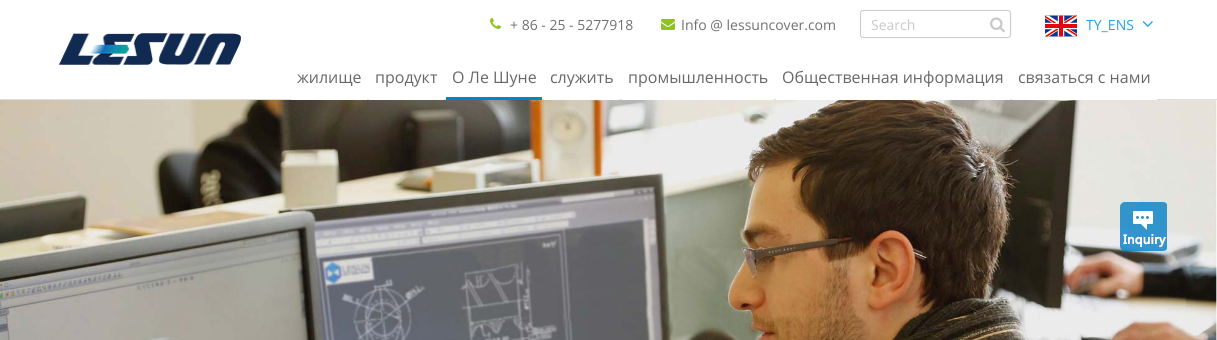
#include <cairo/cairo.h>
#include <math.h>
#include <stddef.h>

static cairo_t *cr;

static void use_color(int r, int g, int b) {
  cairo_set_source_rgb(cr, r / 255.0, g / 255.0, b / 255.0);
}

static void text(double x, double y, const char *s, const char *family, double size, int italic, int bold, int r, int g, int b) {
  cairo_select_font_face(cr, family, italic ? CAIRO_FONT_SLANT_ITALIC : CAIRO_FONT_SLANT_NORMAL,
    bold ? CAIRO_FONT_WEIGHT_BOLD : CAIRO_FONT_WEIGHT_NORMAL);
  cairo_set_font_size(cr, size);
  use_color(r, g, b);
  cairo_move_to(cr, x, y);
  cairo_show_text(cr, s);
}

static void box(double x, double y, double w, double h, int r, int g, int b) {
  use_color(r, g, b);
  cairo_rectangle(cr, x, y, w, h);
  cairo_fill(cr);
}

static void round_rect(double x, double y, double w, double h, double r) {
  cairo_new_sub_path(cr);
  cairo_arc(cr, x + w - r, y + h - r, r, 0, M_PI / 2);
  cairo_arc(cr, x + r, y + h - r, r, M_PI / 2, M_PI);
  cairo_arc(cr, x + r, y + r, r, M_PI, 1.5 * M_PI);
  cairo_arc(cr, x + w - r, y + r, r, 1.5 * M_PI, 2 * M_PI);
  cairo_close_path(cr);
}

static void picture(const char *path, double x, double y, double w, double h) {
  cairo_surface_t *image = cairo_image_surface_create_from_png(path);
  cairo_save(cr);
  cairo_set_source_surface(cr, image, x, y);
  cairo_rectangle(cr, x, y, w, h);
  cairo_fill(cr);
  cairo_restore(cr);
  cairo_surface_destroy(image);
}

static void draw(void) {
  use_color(255, 255, 255);
  cairo_paint(cr);
  box(0, 99, 1217, 1, 221, 221, 221);
  picture("img_01.png", 59, 33, 182, 32);
  picture("img_02.png", 490, 18, 11, 11);
  picture("img_03.png", 661, 19, 14, 11);
  round_rect(860.5, 10.5, 150, 27, 2.5);
  use_color(201, 201, 201);
  cairo_set_line_width(cr, 1);
  cairo_stroke(cr);
  picture("img_04.png", 990, 17, 15, 16);
  picture("img_05.png", 1045, 15, 32, 22);
  picture("img_06.png", 1142, 21, 11, 6);
  box(291, 99, 76, 1, 255, 255, 255);
  box(369, 99, 75, 1, 255, 255, 255);
  box(446, 97, 96, 3, 0, 133, 201);
  box(544, 99, 76, 1, 255, 255, 255);
  box(622, 99, 152, 1, 255, 255, 255);
  box(776, 99, 234, 1, 255, 255, 255);
  box(1012, 99, 145, 1, 255, 255, 255);
  picture("img_07.png", 0, 100, 1217, 240);
  picture("img_08.png", 1120, 202, 47, 49);
  text(510, 30, "+ 86 - 25 - 5277918", "Open Sans", 14, 0, 0, 112, 112, 112);
  text(681, 30, "Info @ lessuncover.com", "Open Sans", 14, 0, 0, 112, 112, 112);
  text(871, 30, "Search", "Open Sans", 14, 0, 0, 201, 201, 201);
  text(1086, 30, "TY_ENS", "Open Sans", 14, 0, 0, 37, 162, 233);
  text(297, 83, "жилище", "Open Sans", 16, 0, 0, 104, 104, 104);
  text(375, 83, "продукт", "Open Sans", 16, 0, 0, 104, 104, 104);
  text(452, 83, "О Ле Шуне", "Open Sans", 16, 0, 0, 104, 104, 104);
  text(550, 83, "служить", "Open Sans", 16, 0, 0, 104, 104, 104);
  text(628, 83, "промышленность", "Open Sans", 16, 0, 0, 104, 104, 104);
  text(782, 83, "Общественная информация", "Open Sans", 16, 0, 0, 104, 104, 104);
  text(1018, 83, "связаться с нами", "Open Sans", 16, 0, 0, 104, 104, 104);
}

int main(void) {
  cairo_surface_t *surface = cairo_image_surface_create(CAIRO_FORMAT_RGB24, 1217, 340);
  cr = cairo_create(surface);
  cairo_font_options_t *options = cairo_font_options_create();
  cairo_font_options_set_hint_metrics(options, CAIRO_HINT_METRICS_OFF);
  cairo_font_options_set_hint_style(options, CAIRO_HINT_STYLE_NONE);
  cairo_set_font_options(cr, options);
  cairo_set_miter_limit(cr, 4);
  draw();
  cairo_surface_write_to_png(surface, "out.png");
  cairo_font_options_destroy(options);
  cairo_destroy(cr);
  cairo_surface_destroy(surface);
  return 0;
}
